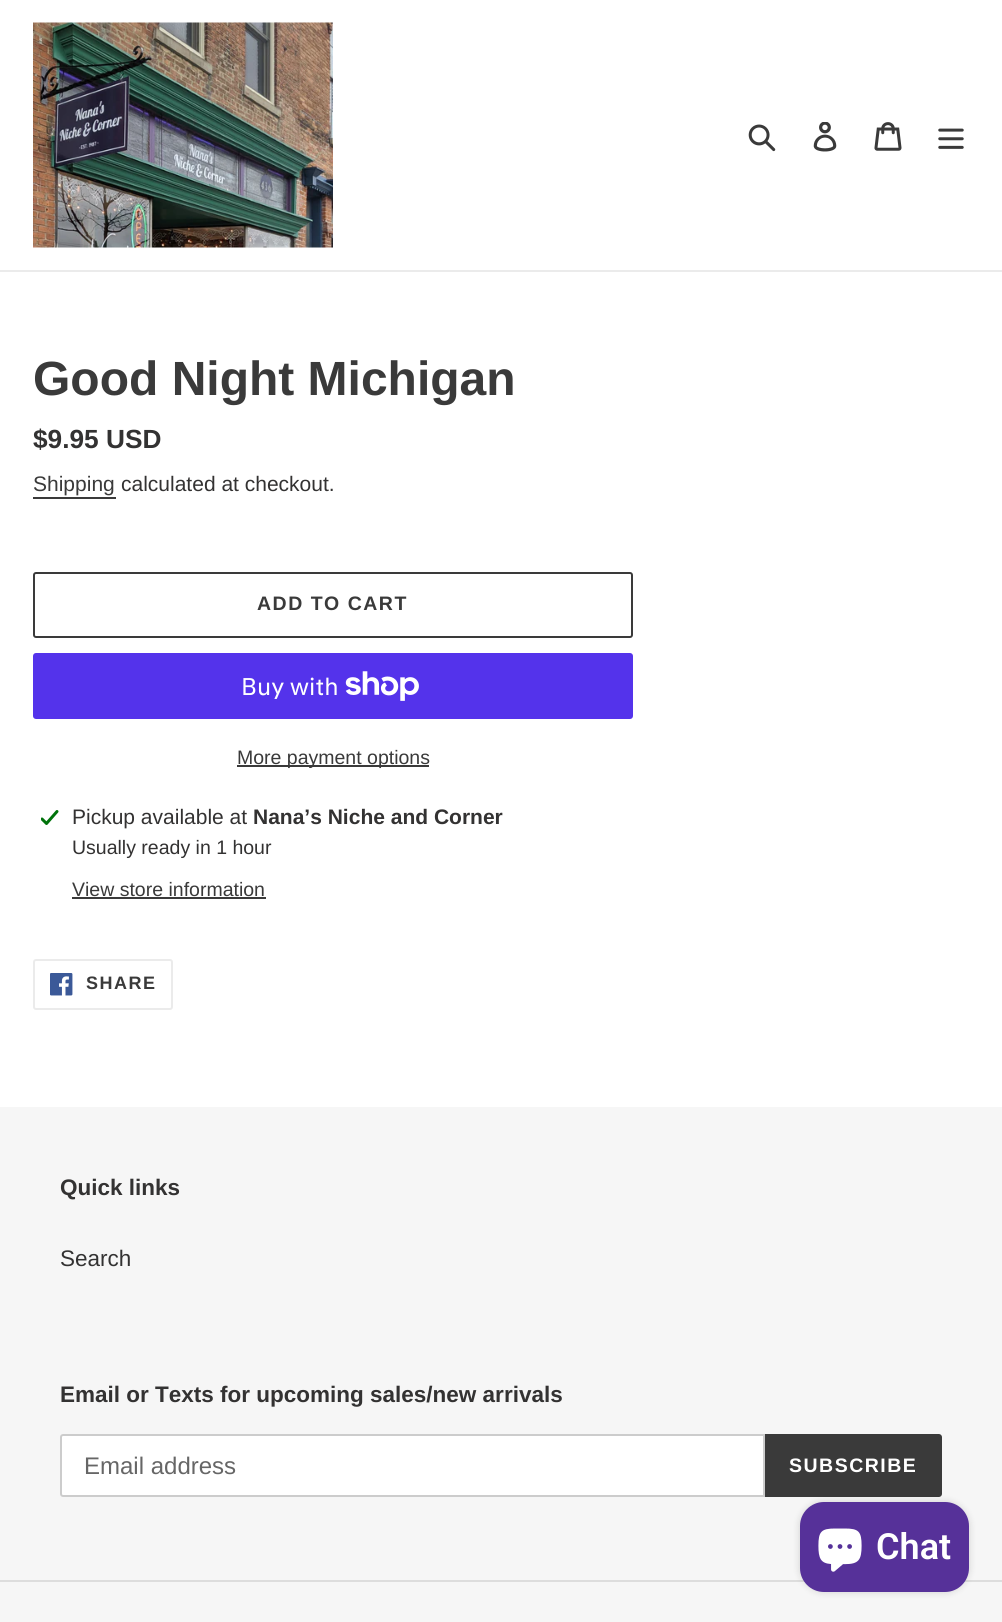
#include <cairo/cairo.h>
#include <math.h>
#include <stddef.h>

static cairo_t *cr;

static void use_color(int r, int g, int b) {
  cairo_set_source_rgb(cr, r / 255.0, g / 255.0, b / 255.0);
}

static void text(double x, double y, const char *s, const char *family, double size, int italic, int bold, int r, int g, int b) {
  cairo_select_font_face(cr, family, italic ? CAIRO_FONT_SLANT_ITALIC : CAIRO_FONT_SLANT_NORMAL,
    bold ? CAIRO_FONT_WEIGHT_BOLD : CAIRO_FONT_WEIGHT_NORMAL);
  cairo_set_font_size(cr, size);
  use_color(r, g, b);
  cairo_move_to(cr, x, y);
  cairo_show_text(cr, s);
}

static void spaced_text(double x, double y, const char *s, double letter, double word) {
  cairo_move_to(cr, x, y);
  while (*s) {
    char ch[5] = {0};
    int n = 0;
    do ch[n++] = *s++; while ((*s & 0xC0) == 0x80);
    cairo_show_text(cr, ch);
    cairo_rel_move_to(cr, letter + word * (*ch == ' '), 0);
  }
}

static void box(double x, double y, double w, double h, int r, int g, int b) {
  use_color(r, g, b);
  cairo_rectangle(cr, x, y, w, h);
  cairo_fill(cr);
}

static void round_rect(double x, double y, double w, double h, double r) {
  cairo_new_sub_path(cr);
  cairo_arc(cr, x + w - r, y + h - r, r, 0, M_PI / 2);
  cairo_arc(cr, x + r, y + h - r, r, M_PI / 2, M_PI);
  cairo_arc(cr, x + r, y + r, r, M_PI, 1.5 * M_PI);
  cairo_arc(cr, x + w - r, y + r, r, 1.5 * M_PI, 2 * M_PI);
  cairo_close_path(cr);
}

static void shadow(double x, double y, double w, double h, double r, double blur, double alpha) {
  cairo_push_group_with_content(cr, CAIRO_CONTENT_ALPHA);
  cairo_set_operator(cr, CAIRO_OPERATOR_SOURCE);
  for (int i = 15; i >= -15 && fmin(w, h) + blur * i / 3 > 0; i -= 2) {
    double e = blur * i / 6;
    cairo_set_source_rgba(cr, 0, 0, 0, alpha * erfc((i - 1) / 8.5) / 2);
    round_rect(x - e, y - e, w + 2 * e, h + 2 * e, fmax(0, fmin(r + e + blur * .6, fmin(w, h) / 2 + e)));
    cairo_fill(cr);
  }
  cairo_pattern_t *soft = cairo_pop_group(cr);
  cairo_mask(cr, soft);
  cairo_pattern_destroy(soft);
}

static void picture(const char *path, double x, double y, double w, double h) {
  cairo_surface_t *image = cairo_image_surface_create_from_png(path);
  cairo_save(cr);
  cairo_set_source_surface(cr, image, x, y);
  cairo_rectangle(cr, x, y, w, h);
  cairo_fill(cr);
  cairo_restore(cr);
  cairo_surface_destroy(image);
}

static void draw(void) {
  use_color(255, 255, 255);
  cairo_paint(cr);
  box(0, 270, 1002, 2, 235, 235, 235);
  picture("img_01.png", 33, 22, 300, 226);
  picture("img_02.png", 748, 124, 28, 28);
  picture("img_03.png", 813, 122, 24, 30);
  picture("img_04.png", 874, 122, 28, 29);
  picture("img_05.png", 938, 128, 26, 21);
  box(33, 497, 83, 2, 58, 58, 58);
  round_rect(34, 573, 598, 64, 2);
  cairo_stroke(cr);
  use_color(84, 51, 235);
  round_rect(33, 653, 600, 66, 3);
  cairo_fill(cr);
  picture("img_06.png", 345, 671, 74, 30);
  box(237, 765, 192, 2, 58, 58, 58);
  picture("img_07.png", 41, 810, 18, 15);
  box(72, 897, 194, 2, 58, 58, 58);
  round_rect(34, 960, 138, 49, 2);
  use_color(235, 235, 235);
  cairo_stroke(cr);
  picture("img_08.png", 50, 973, 23, 23);
  box(0, 1107, 1002, 515, 246, 246, 246);
  use_color(255, 255, 255);
  cairo_new_path(cr);
  cairo_move_to(cr, 63, 1435);
  cairo_line_to(cr, 764, 1435);
  cairo_line_to(cr, 764, 1496);
  cairo_line_to(cr, 63, 1496);
  cairo_curve_to(cr, 62, 1496, 61, 1495, 61, 1494);
  cairo_line_to(cr, 61, 1437);
  cairo_curve_to(cr, 61, 1436, 62, 1435, 63, 1435);
  cairo_close_path(cr);
  cairo_fill_preserve(cr);
  use_color(204, 204, 204);
  cairo_stroke(cr);
  use_color(58, 58, 58);
  cairo_new_path(cr);
  cairo_move_to(cr, 765, 1434);
  cairo_line_to(cr, 939, 1434);
  cairo_curve_to(cr, 940.5, 1434, 942, 1435.5, 942, 1437);
  cairo_line_to(cr, 942, 1494);
  cairo_curve_to(cr, 942, 1495.5, 940.5, 1497, 939, 1497);
  cairo_line_to(cr, 765, 1497);
  cairo_close_path(cr);
  cairo_fill(cr);
  box(0, 1580, 1002, 2, 221, 221, 221);
  use_color(0, 0, 0);
  shadow(800, 1502, 169, 90, 24, 4, 0.15);
  use_color(86, 49, 153);
  round_rect(800, 1502, 169, 90, 24);
  cairo_fill(cr);
  picture("img_09.png", 818, 1528, 44, 44);
  text(33, 395, "Good Night Michigan", "Liberation Sans", 48, 0, 1, 58, 58, 58);
  text(33, 448, "$9.95 USD", "Liberation Sans", 26.25, 0, 1, 51, 50, 50);
  text(33, 491, "Shipping", "Liberation Sans", 21, 0, 0, 58, 58, 58);
  text(121, 491, "calculated at checkout.", "Liberation Sans", 21, 0, 0, 51, 50, 50);
  cairo_select_font_face(cr, "Liberation Sans", CAIRO_FONT_SLANT_NORMAL, CAIRO_FONT_WEIGHT_BOLD);
  cairo_set_font_size(cr, 19.5);
  use_color(58, 58, 58);
  spaced_text(257, 610, "ADD TO CART", 1.5, 0);
  text(241, 695, "Buy with", "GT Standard", 24, 0, 0, 255, 255, 255);
  text(237, 764, "More payment options", "Liberation Sans", 19.5, 0, 0, 58, 58, 58);
  text(72, 824, "Pickup available at", "Liberation Sans", 21, 0, 0, 51, 50, 50);
  text(253, 824, "Nana’s Niche and Corner", "Liberation Sans", 21, 0, 1, 51, 50, 50);
  text(72, 854, "Usually ready in 1 hour", "Liberation Sans", 19.5, 0, 0, 51, 50, 50);
  text(72, 896, "View store information", "Liberation Sans", 19.5, 0, 0, 58, 58, 58);
  cairo_select_font_face(cr, "Liberation Sans", CAIRO_FONT_SLANT_NORMAL, CAIRO_FONT_WEIGHT_BOLD);
  cairo_set_font_size(cr, 18);
  spaced_text(86, 989, "SHARE", 1.5, 0);
  text(60, 1195, "Quick links", "Liberation Sans", 22.5, 0, 1, 51, 50, 50);
  text(60, 1266, "Search", "Liberation Sans", 22.5, 0, 0, 51, 50, 50);
  text(60, 1402, "Email or Texts for upcoming sales/new arrivals", "Liberation Sans", 22.5, 0, 1, 51, 50, 50);
  text(84, 1474, "Email address", "Liberation Sans", 24, 0, 0, 102, 102, 102);
  cairo_select_font_face(cr, "Liberation Sans", CAIRO_FONT_SLANT_NORMAL, CAIRO_FONT_WEIGHT_BOLD);
  cairo_set_font_size(cr, 19.5);
  use_color(255, 255, 255);
  spaced_text(789, 1472, "SUBSCRIBE", 1.5, 0);
  text(876, 1559, "Chat", "Roboto SemiBold", 36, 0, 0, 255, 255, 255);
}

int main(void) {
  cairo_surface_t *surface = cairo_image_surface_create(CAIRO_FORMAT_RGB24, 1002, 1622);
  cr = cairo_create(surface);
  cairo_font_options_t *options = cairo_font_options_create();
  cairo_font_options_set_hint_metrics(options, CAIRO_HINT_METRICS_OFF);
  cairo_font_options_set_hint_style(options, CAIRO_HINT_STYLE_NONE);
  cairo_set_font_options(cr, options);
  cairo_set_miter_limit(cr, 4);
  draw();
  cairo_surface_write_to_png(surface, "out.png");
  cairo_font_options_destroy(options);
  cairo_destroy(cr);
  cairo_surface_destroy(surface);
  return 0;
}
